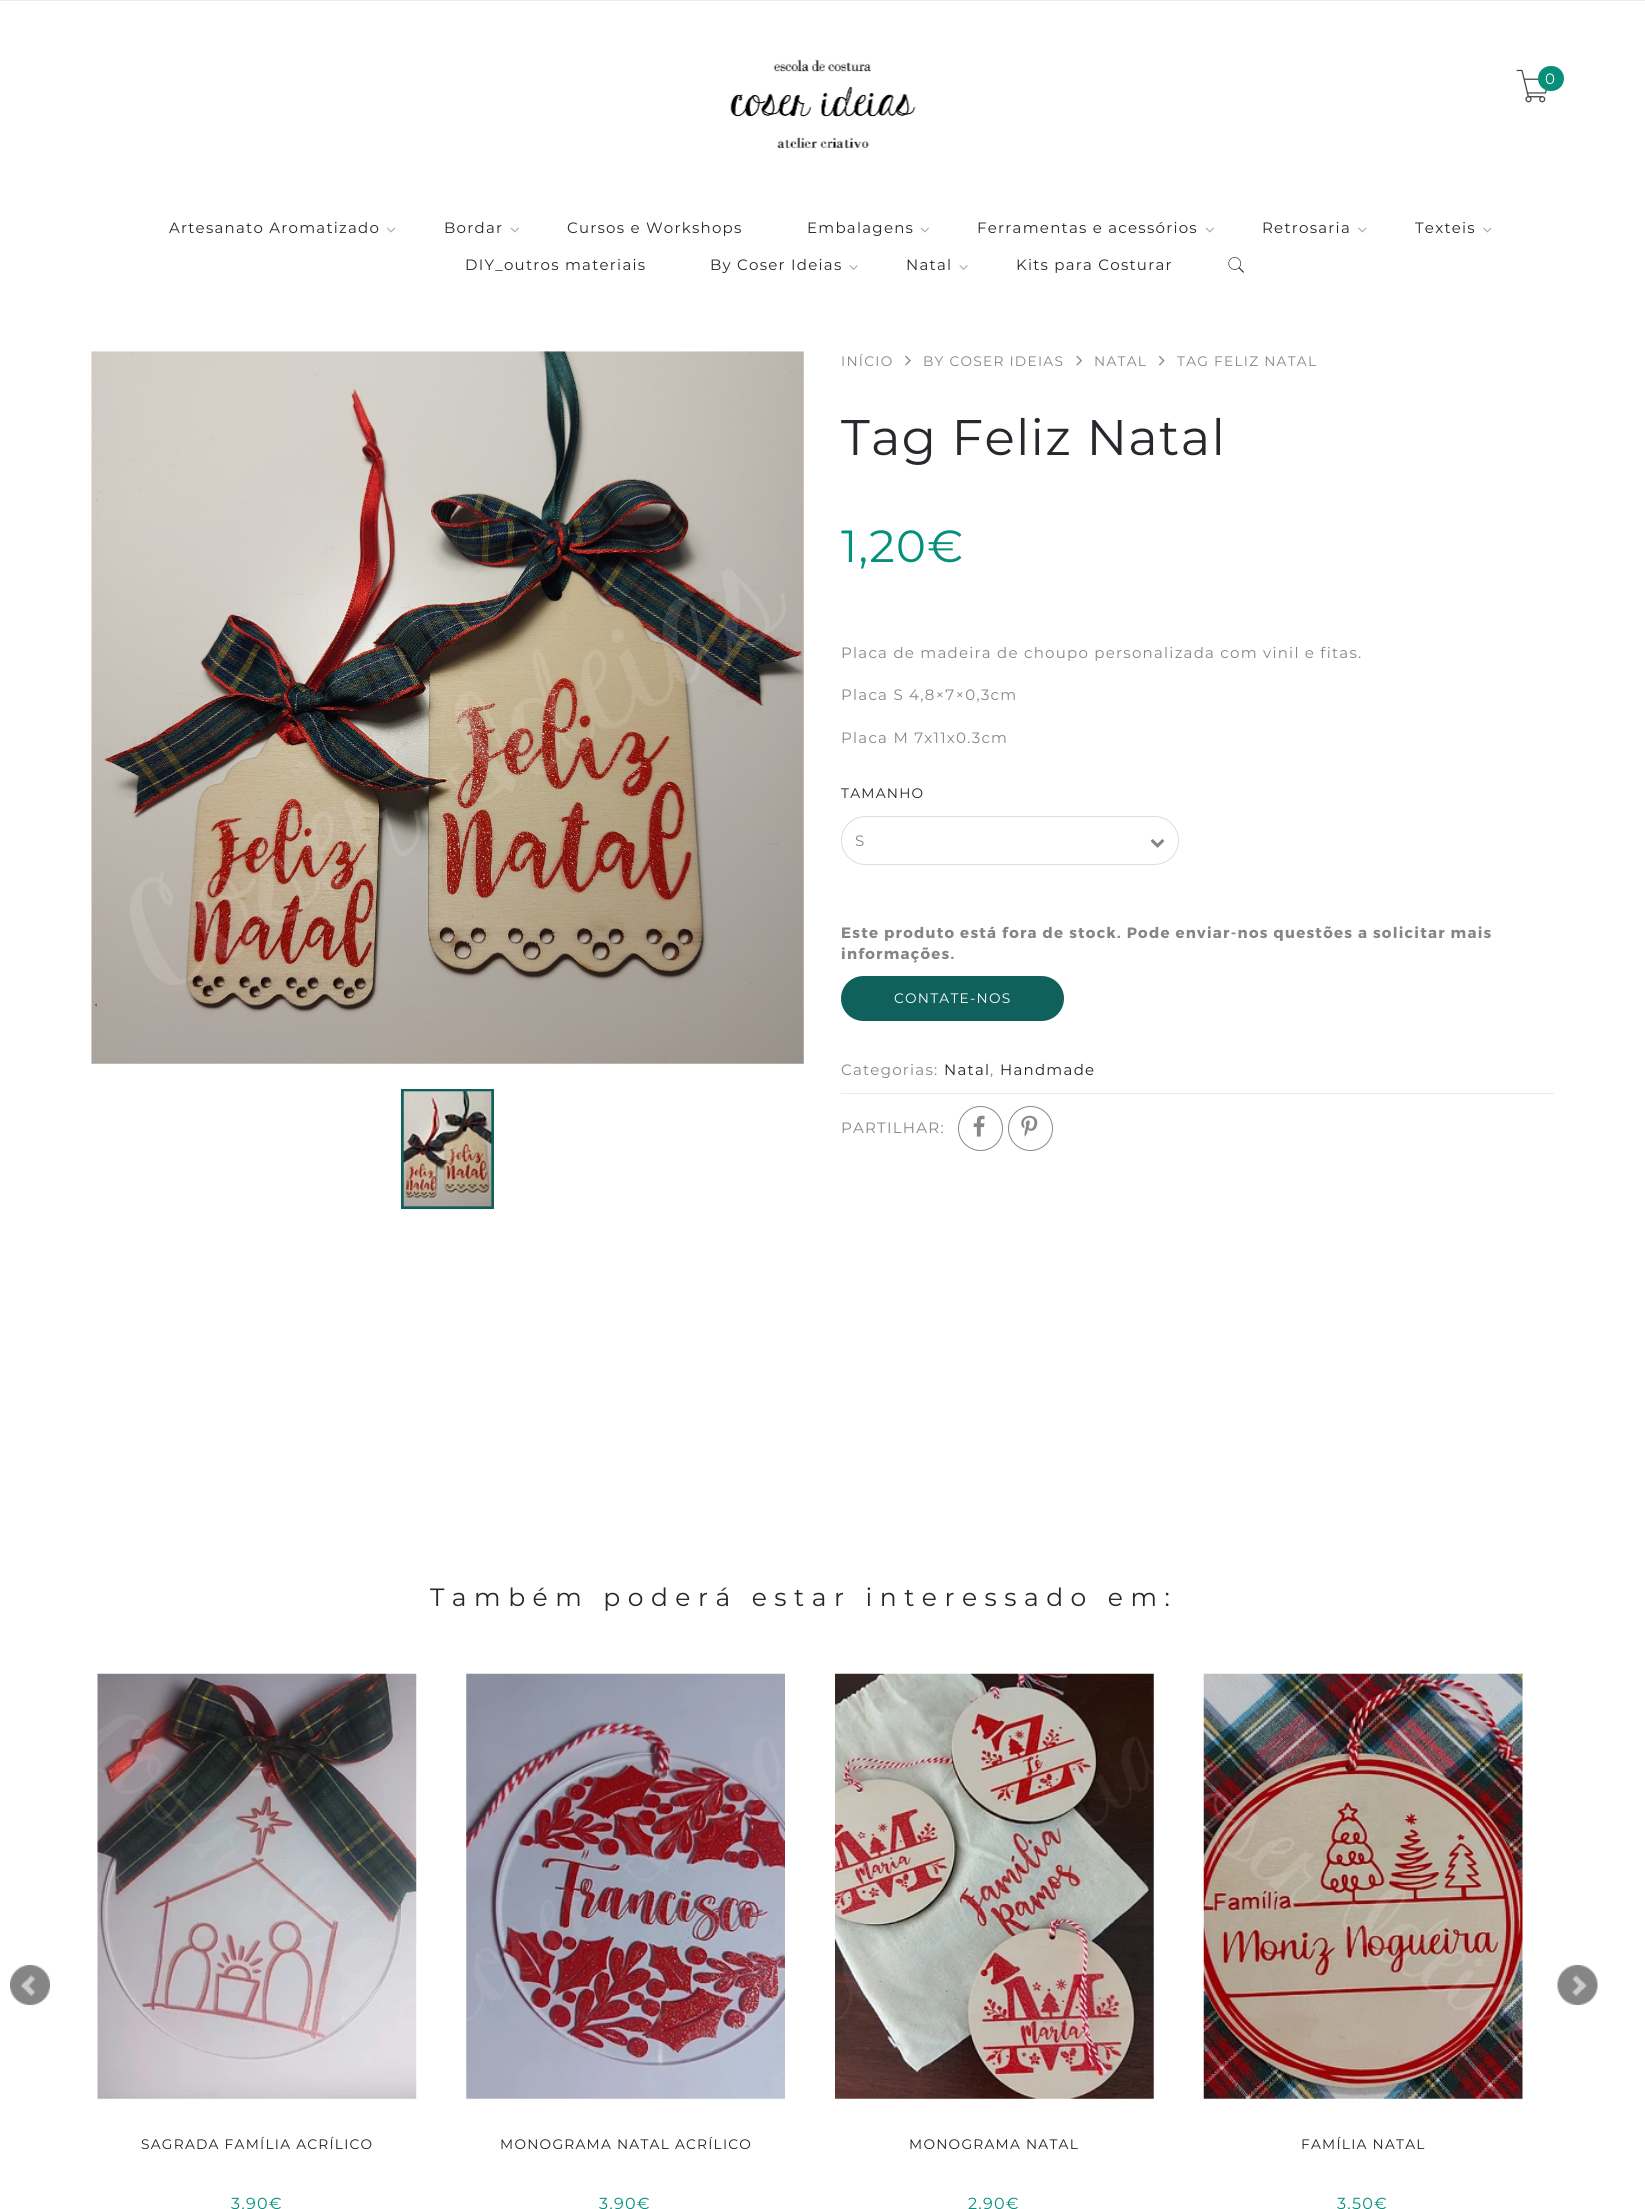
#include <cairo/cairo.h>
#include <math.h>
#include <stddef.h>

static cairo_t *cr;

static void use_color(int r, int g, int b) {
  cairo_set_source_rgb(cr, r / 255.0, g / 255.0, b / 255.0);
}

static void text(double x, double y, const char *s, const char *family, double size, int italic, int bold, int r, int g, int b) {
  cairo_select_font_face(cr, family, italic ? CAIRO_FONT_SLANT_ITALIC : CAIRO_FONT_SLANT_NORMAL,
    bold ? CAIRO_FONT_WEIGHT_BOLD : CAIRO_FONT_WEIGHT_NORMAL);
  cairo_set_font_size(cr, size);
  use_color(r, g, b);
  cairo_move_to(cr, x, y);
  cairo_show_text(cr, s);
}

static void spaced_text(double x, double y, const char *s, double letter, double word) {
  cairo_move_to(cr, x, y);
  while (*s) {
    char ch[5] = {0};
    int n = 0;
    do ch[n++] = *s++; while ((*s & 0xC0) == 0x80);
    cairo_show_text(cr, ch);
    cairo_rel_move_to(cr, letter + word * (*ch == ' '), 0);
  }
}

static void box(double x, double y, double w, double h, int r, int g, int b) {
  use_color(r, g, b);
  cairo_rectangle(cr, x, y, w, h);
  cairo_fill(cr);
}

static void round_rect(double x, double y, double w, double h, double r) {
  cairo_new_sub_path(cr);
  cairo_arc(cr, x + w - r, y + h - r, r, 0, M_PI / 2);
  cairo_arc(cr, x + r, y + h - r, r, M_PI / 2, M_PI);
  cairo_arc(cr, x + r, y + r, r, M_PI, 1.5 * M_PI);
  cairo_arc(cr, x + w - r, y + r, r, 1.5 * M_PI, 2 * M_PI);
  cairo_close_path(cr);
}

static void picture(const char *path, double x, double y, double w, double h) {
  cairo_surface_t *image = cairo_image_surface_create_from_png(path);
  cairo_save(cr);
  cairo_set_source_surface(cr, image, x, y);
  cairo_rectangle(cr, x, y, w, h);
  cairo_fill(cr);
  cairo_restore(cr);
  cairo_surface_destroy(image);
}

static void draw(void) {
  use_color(255, 255, 255);
  cairo_paint(cr);
  box(0, 0, 1645, 1, 234, 234, 234);
  picture("img_01.png", 730, 59, 186, 90);
  picture("img_02.png", 1516, 69, 31, 34);
  use_color(6, 143, 121);
  round_rect(1538, 66, 26, 25, 12.5);
  cairo_fill(cr);
  picture("img_03.png", 387, 227, 9, 6);
  picture("img_04.png", 510, 227, 9, 6);
  picture("img_04.png", 920, 227, 9, 6);
  picture("img_04.png", 1205, 227, 9, 6);
  picture("img_05.png", 1358, 227, 9, 6);
  picture("img_05.png", 1483, 227, 9, 6);
  picture("img_06.png", 849, 265, 9, 5);
  picture("img_06.png", 959, 265, 9, 5);
  picture("img_07.png", 1228, 257, 16, 16);
  picture("img_08.png", 91, 351, 713, 713);
  cairo_rectangle(cr, 402.5, 1090.5, 90, 117);
  use_color(16, 96, 91);
  cairo_set_line_width(cr, 3);
  cairo_stroke(cr);
  picture("img_09.png", 403, 1091, 89, 116);
  picture("img_10.png", 905, 355, 6, 11);
  picture("img_11.png", 1076, 355, 6, 11);
  picture("img_12.png", 1158, 355, 7, 11);
  picture("img_13.png", 1150, 839, 15, 9);
  round_rect(841.5, 816.5, 337, 48, 24);
  use_color(221, 221, 221);
  cairo_set_line_width(cr, 1);
  cairo_stroke(cr);
  use_color(16, 96, 91);
  round_rect(842.5, 977.5, 220, 42, 21);
  cairo_fill_preserve(cr);
  cairo_set_line_width(cr, 3);
  cairo_stroke(cr);
  box(841, 1093, 713, 1, 234, 234, 234);
  cairo_arc(cr, 980.5, 1128.5, 22, 0, 2 * M_PI);
  use_color(136, 136, 136);
  cairo_set_line_width(cr, 1);
  cairo_stroke(cr);
  picture("img_14.png", 973, 1115, 12, 22);
  cairo_arc(cr, 1030.5, 1128.5, 22, 0, 2 * M_PI);
  cairo_stroke(cr);
  picture("img_15.png", 1021, 1115, 17, 22);
  picture("img_16.png", 10, 1965, 40, 40);
  picture("img_17.png", 1557, 1965, 41, 40);
  picture("img_18.png", 97, 1673, 320, 426);
  picture("img_19.png", 466, 1673, 319, 426);
  picture("img_20.png", 835, 1673, 319, 426);
  picture("img_21.png", 1203, 1673, 320, 426);
  cairo_select_font_face(cr, "Montserrat Thin", CAIRO_FONT_SLANT_NORMAL, CAIRO_FONT_WEIGHT_NORMAL);
  cairo_set_font_size(cr, 15);
  use_color(255, 255, 255);
  spaced_text(1545, 84, "0", 1.25, 0);
  use_color(37, 40, 44);
  spaced_text(169, 233, "Artesanato Aromatizado", 1.25, 0);
  spaced_text(444, 233, "Bordar", 1.25, 0);
  spaced_text(567, 233, "Cursos e Workshops", 1.25, 0);
  spaced_text(807, 233, "Embalagens", 1.25, 0);
  spaced_text(977, 233, "Ferramentas e acessórios", 1.25, 0);
  spaced_text(1262, 233, "Retrosaria", 1.25, 0);
  spaced_text(1415, 233, "Texteis", 1.25, 0);
  spaced_text(465, 270, "DIY_outros materiais", 1.25, 0);
  spaced_text(710, 270, "By Coser Ideias", 1.25, 0);
  spaced_text(906, 270, "Natal", 1.25, 0);
  spaced_text(1016, 270, "Kits para Costurar", 1.25, 0);
  cairo_set_font_size(cr, 13.75);
  use_color(133, 133, 133);
  spaced_text(841, 366, "INÍCIO", 1.25, 0);
  spaced_text(923, 366, "BY COSER IDEIAS", 1.25, 0);
  spaced_text(1094, 366, "NATAL", 1.25, 0);
  spaced_text(1177, 366, "TAG FELIZ NATAL", 1.25, 0);
  cairo_set_font_size(cr, 50);
  use_color(37, 40, 44);
  spaced_text(841, 455, "Tag Feliz Natal", 1.25, 0);
  cairo_set_font_size(cr, 45);
  use_color(6, 143, 121);
  spaced_text(841, 562, "1,20€", 1.25, 0);
  cairo_set_font_size(cr, 15);
  use_color(133, 133, 133);
  spaced_text(841, 658, "Placa de madeira de choupo personalizada com vinil e fitas.", 1.25, 0);
  spaced_text(841, 700, "Placa S 4,8×7×0,3cm", 1.25, 0);
  spaced_text(841, 743, "Placa M 7x11x0.3cm", 1.25, 0);
  cairo_set_font_size(cr, 13.75);
  use_color(33, 33, 33);
  spaced_text(841, 798, "TAMANHO", 1.25, 0);
  text(855, 846, "S", "Montserrat Thin", 15, 0, 0, 133, 133, 133);
  cairo_select_font_face(cr, "Montserrat", CAIRO_FONT_SLANT_NORMAL, CAIRO_FONT_WEIGHT_BOLD);
  spaced_text(841, 938, "Este produto está fora de stock. Pode enviar-nos questões a solicitar mais", 1.25, 0);
  spaced_text(841, 959, "informações.", 1.25, 0);
  cairo_select_font_face(cr, "Montserrat Thin", CAIRO_FONT_SLANT_NORMAL, CAIRO_FONT_WEIGHT_NORMAL);
  cairo_set_font_size(cr, 13.75);
  use_color(255, 255, 255);
  spaced_text(894, 1003, "CONTATE-NOS", 1.25, 0);
  cairo_set_font_size(cr, 15);
  use_color(133, 133, 133);
  spaced_text(841, 1075, "Categorias:", 1.25, 0);
  use_color(33, 33, 33);
  spaced_text(944, 1075, "Natal", 1.25, 0);
  use_color(133, 133, 133);
  spaced_text(990, 1075, ",", 1.25, 0);
  use_color(33, 33, 33);
  spaced_text(1000, 1075, "Handmade", 1.25, 0);
  use_color(133, 133, 133);
  spaced_text(841, 1133, "PARTILHAR:", 1.25, 0);
  cairo_set_font_size(cr, 25);
  use_color(37, 40, 44);
  spaced_text(430, 1606, "Também poderá estar interessado em:", 7.5, 0);
  cairo_set_font_size(cr, 13.75);
  use_color(33, 33, 33);
  spaced_text(141, 2149, "SAGRADA FAMÍLIA ACRÍLICO", 1.25, 0);
  cairo_set_font_size(cr, 16);
  use_color(6, 143, 121);
  spaced_text(231, 2209, "3,90€", 1.25, 0);
  cairo_set_font_size(cr, 13.75);
  use_color(33, 33, 33);
  spaced_text(500, 2149, "MONOGRAMA NATAL ACRÍLICO", 1.25, 0);
  cairo_set_font_size(cr, 16);
  use_color(6, 143, 121);
  spaced_text(599, 2209, "3,90€", 1.25, 0);
  cairo_set_font_size(cr, 13.75);
  use_color(33, 33, 33);
  spaced_text(909, 2149, "MONOGRAMA NATAL", 1.25, 0);
  cairo_set_font_size(cr, 16);
  use_color(6, 143, 121);
  spaced_text(968, 2209, "2,90€", 1.25, 0);
  cairo_set_font_size(cr, 13.75);
  use_color(33, 33, 33);
  spaced_text(1301, 2149, "FAMÍLIA NATAL", 1.25, 0);
  cairo_set_font_size(cr, 16);
  use_color(6, 143, 121);
  spaced_text(1337, 2209, "3,50€", 1.25, 0);
}

int main(void) {
  cairo_surface_t *surface = cairo_image_surface_create(CAIRO_FORMAT_RGB24, 1645, 2209);
  cr = cairo_create(surface);
  cairo_font_options_t *options = cairo_font_options_create();
  cairo_font_options_set_hint_metrics(options, CAIRO_HINT_METRICS_OFF);
  cairo_font_options_set_hint_style(options, CAIRO_HINT_STYLE_NONE);
  cairo_set_font_options(cr, options);
  cairo_set_miter_limit(cr, 4);
  draw();
  cairo_surface_write_to_png(surface, "out.png");
  cairo_font_options_destroy(options);
  cairo_destroy(cr);
  cairo_surface_destroy(surface);
  return 0;
}
